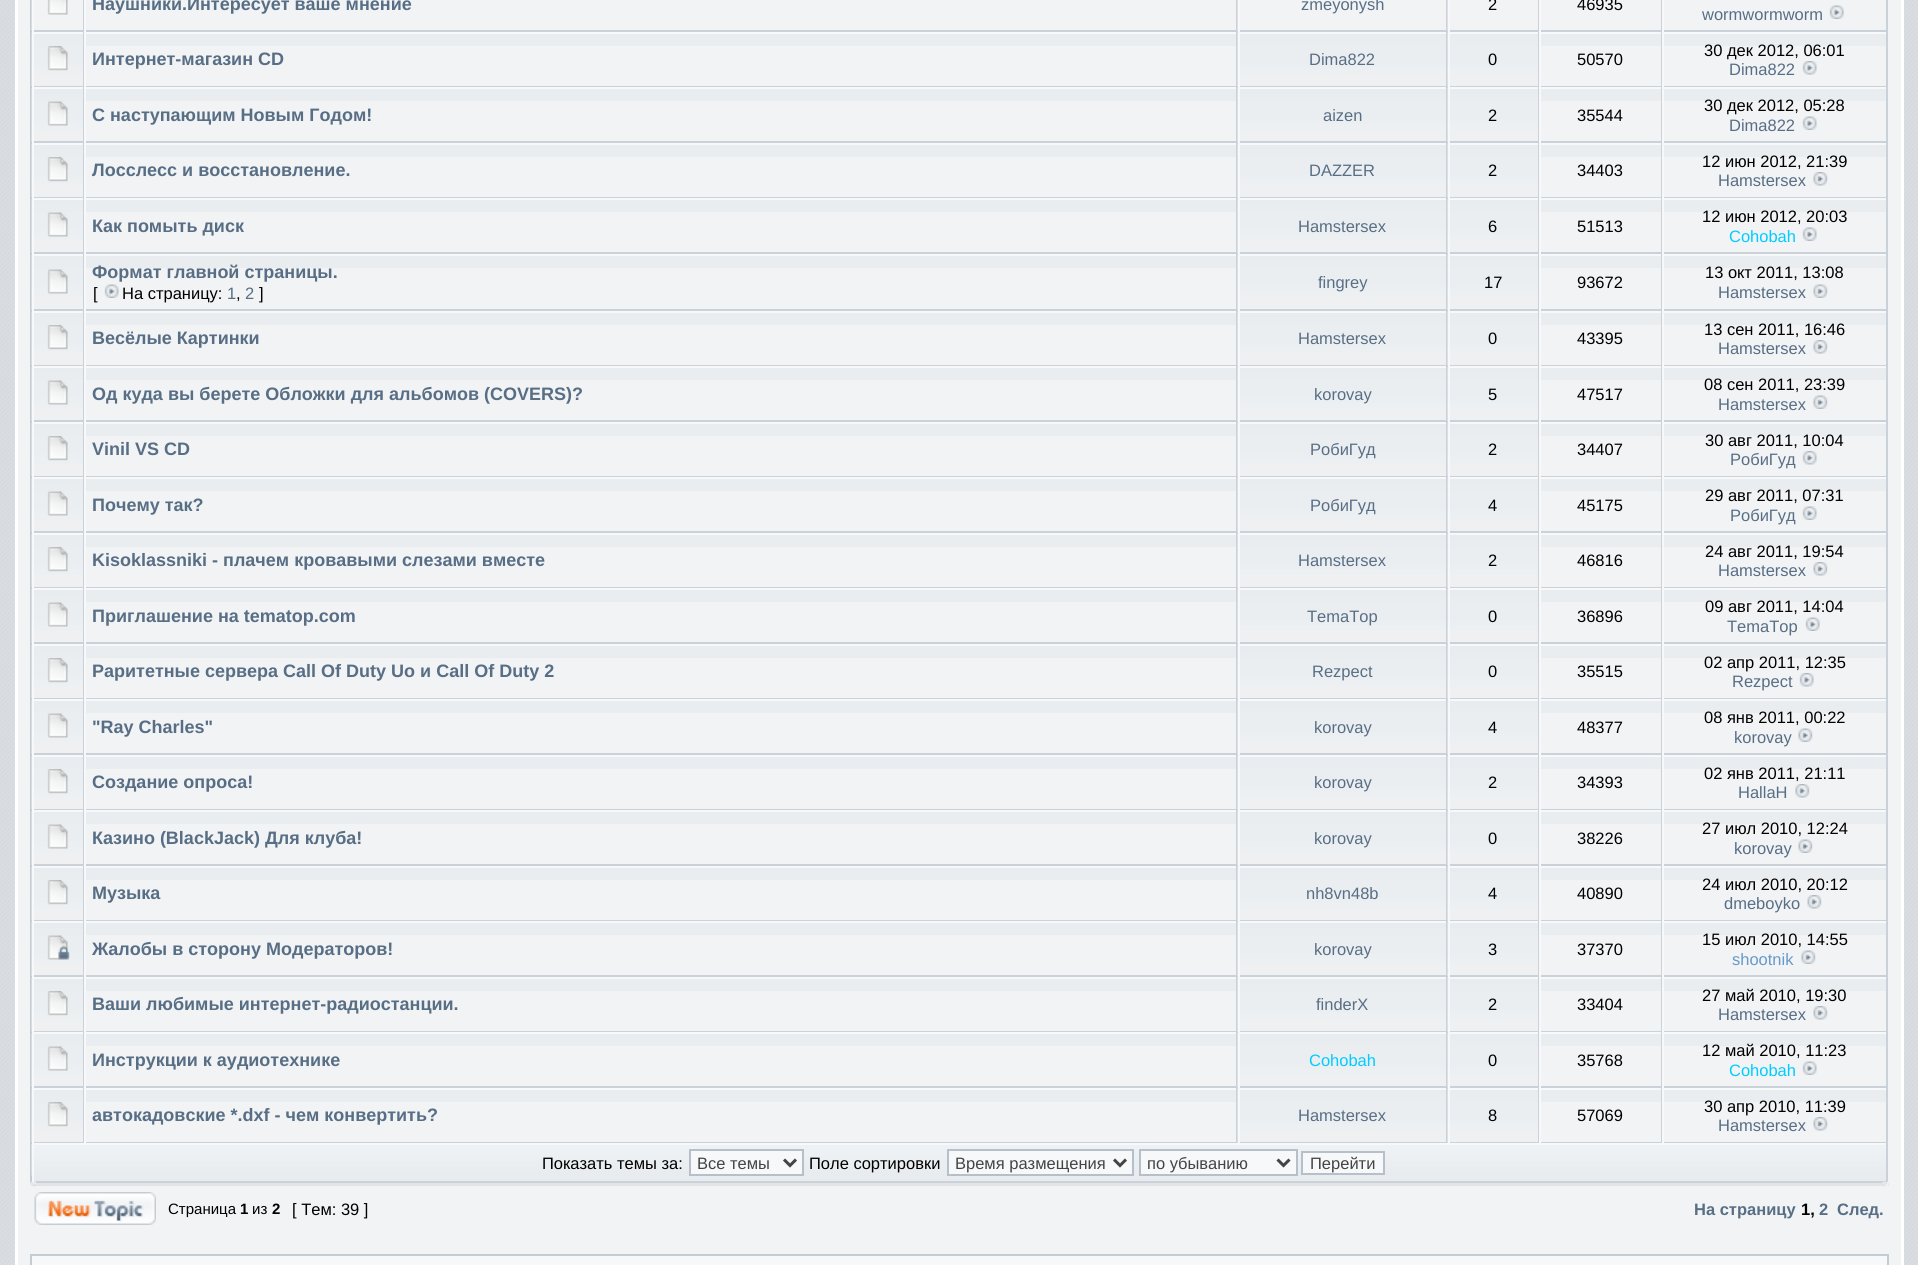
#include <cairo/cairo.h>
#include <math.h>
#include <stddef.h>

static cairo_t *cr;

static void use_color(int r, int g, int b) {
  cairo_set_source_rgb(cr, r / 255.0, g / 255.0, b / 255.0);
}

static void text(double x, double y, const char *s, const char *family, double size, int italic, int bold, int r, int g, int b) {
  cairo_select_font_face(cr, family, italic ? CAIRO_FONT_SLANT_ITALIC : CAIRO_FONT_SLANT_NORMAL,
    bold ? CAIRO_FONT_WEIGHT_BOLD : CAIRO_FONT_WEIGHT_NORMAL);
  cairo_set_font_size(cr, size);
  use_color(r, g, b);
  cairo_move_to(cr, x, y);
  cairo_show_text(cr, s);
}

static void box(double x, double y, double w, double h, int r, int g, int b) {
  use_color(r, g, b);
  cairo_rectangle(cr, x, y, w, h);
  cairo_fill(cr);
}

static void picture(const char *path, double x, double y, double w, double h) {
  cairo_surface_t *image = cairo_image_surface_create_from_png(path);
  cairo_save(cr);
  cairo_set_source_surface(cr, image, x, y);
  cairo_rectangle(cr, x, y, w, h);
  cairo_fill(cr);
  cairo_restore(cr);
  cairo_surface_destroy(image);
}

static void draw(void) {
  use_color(255, 255, 255);
  cairo_paint(cr);
  picture("img_01.png", 0, 0, 1918, 1265);
  cairo_rectangle(cr, 16.5, -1.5, 1886, 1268);
  use_color(255, 255, 255);
  cairo_set_line_width(cr, 3);
  cairo_stroke(cr);
  box(18, 0, 1883, 1265, 241, 243, 245);
  box(30, 1183, 1859, 3, 225, 229, 232);
  box(30, 0, 2, 1182, 195, 203, 211);
  picture("img_02.png", 31, 0, 1, 31);
  box(83, 0, 1, 32, 202, 209, 216);
  box(32, 30, 52, 2, 202, 209, 216);
  box(32, 0, 2, 32, 246, 248, 249);
  picture("img_03.png", 47, 0, 21, 15);
  box(1236, 0, 2, 32, 202, 209, 216);
  box(84, 30, 1154, 2, 202, 209, 216);
  box(84, 0, 2, 32, 246, 248, 249);
  picture("img_04.png", 1237, 0, 1, 31);
  box(1446, 0, 2, 32, 202, 209, 216);
  box(1238, 30, 210, 2, 202, 209, 216);
  box(1238, 0, 2, 32, 246, 248, 249);
  picture("img_04.png", 1447, 0, 1, 31);
  box(1538, 0, 1, 32, 202, 209, 216);
  box(1448, 30, 91, 2, 202, 209, 216);
  box(1448, 0, 2, 32, 246, 248, 249);
  box(1661, 0, 1, 32, 202, 209, 216);
  box(1539, 30, 123, 2, 202, 209, 216);
  box(1539, 0, 2, 32, 246, 248, 249);
  box(1886, 0, 2, 32, 202, 209, 216);
  box(1662, 30, 225, 2, 202, 209, 216);
  box(1662, 0, 2, 32, 246, 248, 249);
  picture("img_05.png", 1829, 5, 15, 14);
  picture("img_06.png", 31, 32, 52, 55);
  box(32, 32, 1206, 2, 246, 248, 249);
  box(83, 32, 1, 55, 202, 209, 216);
  box(32, 86, 52, 1, 202, 209, 216);
  box(32, 32, 2, 55, 246, 248, 249);
  picture("img_07.png", 47, 46, 21, 25);
  box(1664, 34, 222, 12, 234, 237, 239);
  box(1236, 32, 2, 55, 202, 209, 216);
  box(84, 86, 1154, 1, 202, 209, 216);
  picture("img_09.png", 1237, 32, 209, 55);
  box(1238, 32, 210, 2, 246, 248, 249);
  box(1446, 32, 2, 55, 202, 209, 216);
  box(1238, 86, 210, 1, 202, 209, 216);
  picture("img_10.png", 1447, 32, 91, 55);
  box(1448, 32, 439, 2, 246, 248, 249);
  box(1886, 32, 2, 55, 202, 209, 216);
  box(1662, 86, 225, 1, 202, 209, 216);
  box(1662, 32, 2, 55, 246, 248, 249);
  picture("img_08.png", 1802, 61, 15, 14);
  box(86, 34, 1150, 12, 234, 237, 239);
  box(84, 32, 2, 55, 246, 248, 249);
  box(1238, 32, 2, 55, 246, 248, 249);
  box(1538, 32, 1, 55, 202, 209, 216);
  box(1448, 86, 91, 1, 202, 209, 216);
  box(1448, 32, 2, 55, 246, 248, 249);
  box(1541, 34, 120, 12, 234, 237, 239);
  box(1661, 32, 1, 55, 202, 209, 216);
  box(1539, 86, 123, 1, 202, 209, 216);
  box(1539, 32, 2, 55, 246, 248, 249);
  picture("img_11.png", 31, 88, 52, 54);
  box(32, 87, 1206, 2, 246, 248, 249);
  box(83, 87, 1, 56, 202, 209, 216);
  box(32, 141, 52, 2, 202, 209, 216);
  box(32, 87, 2, 56, 246, 248, 249);
  picture("img_12.png", 47, 101, 21, 25);
  box(1664, 89, 222, 12, 234, 237, 239);
  box(1236, 87, 2, 56, 202, 209, 216);
  box(84, 141, 1154, 2, 202, 209, 216);
  picture("img_14.png", 1237, 88, 209, 54);
  box(1238, 87, 210, 2, 246, 248, 249);
  box(1446, 87, 2, 56, 202, 209, 216);
  box(1238, 141, 210, 2, 202, 209, 216);
  picture("img_15.png", 1447, 88, 91, 54);
  box(1448, 87, 439, 2, 246, 248, 249);
  box(1886, 87, 2, 56, 202, 209, 216);
  box(1662, 141, 225, 2, 202, 209, 216);
  box(1662, 87, 2, 56, 246, 248, 249);
  picture("img_13.png", 1802, 116, 15, 14);
  box(86, 89, 1150, 12, 234, 237, 239);
  box(84, 87, 2, 56, 246, 248, 249);
  box(1238, 87, 2, 56, 246, 248, 249);
  box(1538, 87, 1, 56, 202, 209, 216);
  box(1448, 141, 91, 2, 202, 209, 216);
  box(1448, 87, 2, 56, 246, 248, 249);
  box(1541, 89, 120, 12, 234, 237, 239);
  box(1661, 87, 1, 56, 202, 209, 216);
  box(1539, 141, 123, 2, 202, 209, 216);
  box(1539, 87, 2, 56, 246, 248, 249);
  picture("img_06.png", 31, 143, 52, 55);
  box(32, 143, 1206, 2, 246, 248, 249);
  box(83, 143, 1, 55, 202, 209, 216);
  box(32, 197, 52, 1, 202, 209, 216);
  box(32, 143, 2, 55, 246, 248, 249);
  picture("img_07.png", 47, 157, 21, 25);
  box(1664, 145, 222, 12, 234, 237, 239);
  box(1236, 143, 2, 55, 202, 209, 216);
  box(84, 197, 1154, 1, 202, 209, 216);
  picture("img_09.png", 1237, 143, 209, 55);
  box(1238, 143, 210, 2, 246, 248, 249);
  box(1446, 143, 2, 55, 202, 209, 216);
  box(1238, 197, 210, 1, 202, 209, 216);
  picture("img_10.png", 1447, 143, 91, 55);
  box(1448, 143, 439, 2, 246, 248, 249);
  box(1886, 143, 2, 55, 202, 209, 216);
  box(1662, 197, 225, 1, 202, 209, 216);
  box(1662, 143, 2, 55, 246, 248, 249);
  picture("img_16.png", 1813, 172, 15, 14);
  box(86, 145, 1150, 12, 234, 237, 239);
  box(84, 143, 2, 55, 246, 248, 249);
  box(1238, 143, 2, 55, 246, 248, 249);
  box(1538, 143, 1, 55, 202, 209, 216);
  box(1448, 197, 91, 1, 202, 209, 216);
  box(1448, 143, 2, 55, 246, 248, 249);
  box(1541, 145, 120, 12, 234, 237, 239);
  box(1661, 143, 1, 55, 202, 209, 216);
  box(1539, 197, 123, 1, 202, 209, 216);
  box(1539, 143, 2, 55, 246, 248, 249);
  picture("img_11.png", 31, 199, 52, 54);
  box(32, 198, 1206, 2, 246, 248, 249);
  box(83, 198, 1, 56, 202, 209, 216);
  box(32, 252, 52, 2, 202, 209, 216);
  box(32, 198, 2, 56, 246, 248, 249);
  picture("img_12.png", 47, 212, 21, 25);
  box(1664, 200, 222, 12, 234, 237, 239);
  box(1236, 198, 2, 56, 202, 209, 216);
  box(84, 252, 1154, 2, 202, 209, 216);
  picture("img_14.png", 1237, 199, 209, 54);
  box(1238, 198, 210, 2, 246, 248, 249);
  box(1446, 198, 2, 56, 202, 209, 216);
  box(1238, 252, 210, 2, 202, 209, 216);
  picture("img_15.png", 1447, 199, 91, 54);
  box(1448, 198, 439, 2, 246, 248, 249);
  box(1886, 198, 2, 56, 202, 209, 216);
  box(1662, 252, 225, 2, 202, 209, 216);
  box(1662, 198, 2, 56, 246, 248, 249);
  picture("img_13.png", 1802, 227, 15, 14);
  box(86, 200, 1150, 12, 234, 237, 239);
  box(84, 198, 2, 56, 246, 248, 249);
  box(1238, 198, 2, 56, 246, 248, 249);
  box(1538, 198, 1, 56, 202, 209, 216);
  box(1448, 252, 91, 2, 202, 209, 216);
  box(1448, 198, 2, 56, 246, 248, 249);
  box(1541, 200, 120, 12, 234, 237, 239);
  box(1661, 198, 1, 56, 202, 209, 216);
  box(1539, 252, 123, 2, 202, 209, 216);
  box(1539, 198, 2, 56, 246, 248, 249);
  picture("img_17.png", 31, 254, 52, 56);
  box(32, 254, 1206, 2, 246, 248, 249);
  box(83, 254, 1, 57, 202, 209, 216);
  box(32, 309, 52, 2, 202, 209, 216);
  box(32, 254, 2, 57, 246, 248, 249);
  picture("img_18.png", 47, 269, 21, 25);
  box(86, 256, 1150, 12, 234, 237, 239);
  box(1236, 254, 2, 57, 202, 209, 216);
  box(84, 309, 1154, 2, 202, 209, 216);
  box(84, 254, 2, 57, 246, 248, 249);
  picture("img_19.png", 104, 284, 15, 14);
  picture("img_20.png", 1237, 254, 209, 56);
  box(1238, 254, 210, 2, 246, 248, 249);
  box(1446, 254, 2, 57, 202, 209, 216);
  box(1238, 309, 210, 2, 202, 209, 216);
  box(1238, 254, 2, 57, 246, 248, 249);
  picture("img_21.png", 1447, 254, 91, 56);
  box(1448, 254, 439, 2, 246, 248, 249);
  box(1538, 254, 1, 57, 202, 209, 216);
  box(1448, 309, 91, 2, 202, 209, 216);
  box(1448, 254, 2, 57, 246, 248, 249);
  box(1541, 256, 120, 12, 234, 237, 239);
  box(1661, 254, 1, 57, 202, 209, 216);
  box(1539, 309, 123, 2, 202, 209, 216);
  box(1539, 254, 2, 57, 246, 248, 249);
  box(1664, 256, 222, 12, 234, 237, 239);
  box(1886, 254, 2, 57, 202, 209, 216);
  box(1662, 309, 225, 2, 202, 209, 216);
  box(1662, 254, 2, 57, 246, 248, 249);
  picture("img_22.png", 1813, 284, 15, 14);
  picture("img_06.png", 31, 311, 52, 55);
  box(32, 311, 1206, 2, 246, 248, 249);
  box(83, 311, 1, 55, 202, 209, 216);
  box(32, 365, 52, 1, 202, 209, 216);
  box(32, 311, 2, 55, 246, 248, 249);
  picture("img_07.png", 47, 325, 21, 25);
  box(1664, 313, 222, 12, 234, 237, 239);
  box(1236, 311, 2, 55, 202, 209, 216);
  box(84, 365, 1154, 1, 202, 209, 216);
  picture("img_09.png", 1237, 311, 209, 55);
  box(1238, 311, 210, 2, 246, 248, 249);
  box(1446, 311, 2, 55, 202, 209, 216);
  box(1238, 365, 210, 1, 202, 209, 216);
  picture("img_10.png", 1447, 311, 91, 55);
  box(1448, 311, 439, 2, 246, 248, 249);
  box(1886, 311, 2, 55, 202, 209, 216);
  box(1662, 365, 225, 1, 202, 209, 216);
  box(1662, 311, 2, 55, 246, 248, 249);
  picture("img_16.png", 1813, 340, 15, 14);
  box(86, 313, 1150, 12, 234, 237, 239);
  box(84, 311, 2, 55, 246, 248, 249);
  box(1238, 311, 2, 55, 246, 248, 249);
  box(1538, 311, 1, 55, 202, 209, 216);
  box(1448, 365, 91, 1, 202, 209, 216);
  box(1448, 311, 2, 55, 246, 248, 249);
  box(1541, 313, 120, 12, 234, 237, 239);
  box(1661, 311, 1, 55, 202, 209, 216);
  box(1539, 365, 123, 1, 202, 209, 216);
  box(1539, 311, 2, 55, 246, 248, 249);
  picture("img_11.png", 31, 367, 52, 54);
  box(32, 366, 1206, 2, 246, 248, 249);
  box(83, 366, 1, 56, 202, 209, 216);
  box(32, 420, 52, 2, 202, 209, 216);
  box(32, 366, 2, 56, 246, 248, 249);
  picture("img_12.png", 47, 380, 21, 25);
  box(1664, 368, 222, 12, 234, 237, 239);
  box(1236, 366, 2, 56, 202, 209, 216);
  box(84, 420, 1154, 2, 202, 209, 216);
  picture("img_14.png", 1237, 367, 209, 54);
  box(1238, 366, 210, 2, 246, 248, 249);
  box(1446, 366, 2, 56, 202, 209, 216);
  box(1238, 420, 210, 2, 202, 209, 216);
  picture("img_15.png", 1447, 367, 91, 54);
  box(1448, 366, 439, 2, 246, 248, 249);
  box(1886, 366, 2, 56, 202, 209, 216);
  box(1662, 420, 225, 2, 202, 209, 216);
  box(1662, 366, 2, 56, 246, 248, 249);
  picture("img_22.png", 1813, 395, 15, 14);
  box(86, 368, 1150, 12, 234, 237, 239);
  box(84, 366, 2, 56, 246, 248, 249);
  box(1238, 366, 2, 56, 246, 248, 249);
  box(1538, 366, 1, 56, 202, 209, 216);
  box(1448, 420, 91, 2, 202, 209, 216);
  box(1448, 366, 2, 56, 246, 248, 249);
  box(1541, 368, 120, 12, 234, 237, 239);
  box(1661, 366, 1, 56, 202, 209, 216);
  box(1539, 420, 123, 2, 202, 209, 216);
  box(1539, 366, 2, 56, 246, 248, 249);
  picture("img_06.png", 31, 422, 52, 55);
  box(32, 422, 1206, 2, 246, 248, 249);
  box(83, 422, 1, 55, 202, 209, 216);
  box(32, 476, 52, 1, 202, 209, 216);
  box(32, 422, 2, 55, 246, 248, 249);
  picture("img_07.png", 47, 436, 21, 25);
  box(1664, 424, 222, 12, 234, 237, 239);
  box(1236, 422, 2, 55, 202, 209, 216);
  box(84, 476, 1154, 1, 202, 209, 216);
  picture("img_09.png", 1237, 422, 209, 55);
  box(1238, 422, 210, 2, 246, 248, 249);
  box(1446, 422, 2, 55, 202, 209, 216);
  box(1238, 476, 210, 1, 202, 209, 216);
  picture("img_10.png", 1447, 422, 91, 55);
  box(1448, 422, 439, 2, 246, 248, 249);
  box(1886, 422, 2, 55, 202, 209, 216);
  box(1662, 476, 225, 1, 202, 209, 216);
  box(1662, 422, 2, 55, 246, 248, 249);
  picture("img_08.png", 1802, 451, 15, 14);
  box(86, 424, 1150, 12, 234, 237, 239);
  box(84, 422, 2, 55, 246, 248, 249);
  box(1238, 422, 2, 55, 246, 248, 249);
  box(1538, 422, 1, 55, 202, 209, 216);
  box(1448, 476, 91, 1, 202, 209, 216);
  box(1448, 422, 2, 55, 246, 248, 249);
  box(1541, 424, 120, 12, 234, 237, 239);
  box(1661, 422, 1, 55, 202, 209, 216);
  box(1539, 476, 123, 1, 202, 209, 216);
  box(1539, 422, 2, 55, 246, 248, 249);
  picture("img_11.png", 31, 478, 52, 54);
  box(32, 477, 1206, 2, 246, 248, 249);
  box(83, 477, 1, 56, 202, 209, 216);
  box(32, 531, 52, 2, 202, 209, 216);
  box(32, 477, 2, 56, 246, 248, 249);
  picture("img_12.png", 47, 491, 21, 25);
  box(1664, 479, 222, 12, 234, 237, 239);
  box(1236, 477, 2, 56, 202, 209, 216);
  box(84, 531, 1154, 2, 202, 209, 216);
  picture("img_14.png", 1237, 478, 209, 54);
  box(1238, 477, 210, 2, 246, 248, 249);
  box(1446, 477, 2, 56, 202, 209, 216);
  box(1238, 531, 210, 2, 202, 209, 216);
  picture("img_15.png", 1447, 478, 91, 54);
  box(1448, 477, 439, 2, 246, 248, 249);
  box(1886, 477, 2, 56, 202, 209, 216);
  box(1662, 531, 225, 2, 202, 209, 216);
  box(1662, 477, 2, 56, 246, 248, 249);
  picture("img_13.png", 1802, 506, 15, 14);
  box(86, 479, 1150, 12, 234, 237, 239);
  box(84, 477, 2, 56, 246, 248, 249);
  box(1238, 477, 2, 56, 246, 248, 249);
  box(1538, 477, 1, 56, 202, 209, 216);
  box(1448, 531, 91, 2, 202, 209, 216);
  box(1448, 477, 2, 56, 246, 248, 249);
  box(1541, 479, 120, 12, 234, 237, 239);
  box(1661, 477, 1, 56, 202, 209, 216);
  box(1539, 531, 123, 2, 202, 209, 216);
  box(1539, 477, 2, 56, 246, 248, 249);
  picture("img_06.png", 31, 533, 52, 55);
  box(32, 533, 1206, 2, 246, 248, 249);
  box(83, 533, 1, 55, 202, 209, 216);
  box(32, 587, 52, 1, 202, 209, 216);
  box(32, 533, 2, 55, 246, 248, 249);
  picture("img_07.png", 47, 547, 21, 25);
  box(1664, 535, 222, 12, 234, 237, 239);
  box(1236, 533, 2, 55, 202, 209, 216);
  box(84, 587, 1154, 1, 202, 209, 216);
  picture("img_09.png", 1237, 533, 209, 55);
  box(1238, 533, 210, 2, 246, 248, 249);
  box(1446, 533, 2, 55, 202, 209, 216);
  box(1238, 587, 210, 1, 202, 209, 216);
  picture("img_10.png", 1447, 533, 91, 55);
  box(1448, 533, 439, 2, 246, 248, 249);
  box(1886, 533, 2, 55, 202, 209, 216);
  box(1662, 587, 225, 1, 202, 209, 216);
  box(1662, 533, 2, 55, 246, 248, 249);
  picture("img_16.png", 1813, 562, 15, 14);
  box(86, 535, 1150, 12, 234, 237, 239);
  box(84, 533, 2, 55, 246, 248, 249);
  box(1238, 533, 2, 55, 246, 248, 249);
  box(1538, 533, 1, 55, 202, 209, 216);
  box(1448, 587, 91, 1, 202, 209, 216);
  box(1448, 533, 2, 55, 246, 248, 249);
  box(1541, 535, 120, 12, 234, 237, 239);
  box(1661, 533, 1, 55, 202, 209, 216);
  box(1539, 587, 123, 1, 202, 209, 216);
  box(1539, 533, 2, 55, 246, 248, 249);
  picture("img_11.png", 31, 589, 52, 54);
  box(32, 588, 1206, 2, 246, 248, 249);
  box(83, 588, 1, 56, 202, 209, 216);
  box(32, 642, 52, 2, 202, 209, 216);
  box(32, 588, 2, 56, 246, 248, 249);
  picture("img_12.png", 47, 602, 21, 25);
  box(1664, 590, 222, 12, 234, 237, 239);
  box(1236, 588, 2, 56, 202, 209, 216);
  box(84, 642, 1154, 2, 202, 209, 216);
  picture("img_14.png", 1237, 589, 209, 54);
  box(1238, 588, 210, 2, 246, 248, 249);
  box(1446, 588, 2, 56, 202, 209, 216);
  box(1238, 642, 210, 2, 202, 209, 216);
  picture("img_15.png", 1447, 589, 91, 54);
  box(1448, 588, 439, 2, 246, 248, 249);
  box(1886, 588, 2, 56, 202, 209, 216);
  box(1662, 642, 225, 2, 202, 209, 216);
  box(1662, 588, 2, 56, 246, 248, 249);
  picture("img_05.png", 1805, 617, 15, 14);
  box(86, 590, 1150, 12, 234, 237, 239);
  box(84, 588, 2, 56, 246, 248, 249);
  box(1238, 588, 2, 56, 246, 248, 249);
  box(1538, 588, 1, 56, 202, 209, 216);
  box(1448, 642, 91, 2, 202, 209, 216);
  box(1448, 588, 2, 56, 246, 248, 249);
  box(1541, 590, 120, 12, 234, 237, 239);
  box(1661, 588, 1, 56, 202, 209, 216);
  box(1539, 642, 123, 2, 202, 209, 216);
  box(1539, 588, 2, 56, 246, 248, 249);
  picture("img_06.png", 31, 644, 52, 55);
  box(32, 644, 1206, 2, 246, 248, 249);
  box(83, 644, 1, 55, 202, 209, 216);
  box(32, 698, 52, 1, 202, 209, 216);
  box(32, 644, 2, 55, 246, 248, 249);
  picture("img_07.png", 47, 658, 21, 25);
  box(1664, 646, 222, 12, 234, 237, 239);
  box(1236, 644, 2, 55, 202, 209, 216);
  box(84, 698, 1154, 1, 202, 209, 216);
  picture("img_09.png", 1237, 644, 209, 55);
  box(1238, 644, 210, 2, 246, 248, 249);
  box(1446, 644, 2, 55, 202, 209, 216);
  box(1238, 698, 210, 1, 202, 209, 216);
  picture("img_10.png", 1447, 644, 91, 55);
  box(1448, 644, 439, 2, 246, 248, 249);
  box(1886, 644, 2, 55, 202, 209, 216);
  box(1662, 698, 225, 1, 202, 209, 216);
  box(1662, 644, 2, 55, 246, 248, 249);
  picture("img_08.png", 1799, 673, 15, 14);
  box(86, 646, 1150, 12, 234, 237, 239);
  box(84, 644, 2, 55, 246, 248, 249);
  box(1238, 644, 2, 55, 246, 248, 249);
  box(1538, 644, 1, 55, 202, 209, 216);
  box(1448, 698, 91, 1, 202, 209, 216);
  box(1448, 644, 2, 55, 246, 248, 249);
  box(1541, 646, 120, 12, 234, 237, 239);
  box(1661, 644, 1, 55, 202, 209, 216);
  box(1539, 698, 123, 1, 202, 209, 216);
  box(1539, 644, 2, 55, 246, 248, 249);
  picture("img_11.png", 31, 700, 52, 54);
  box(32, 699, 1206, 2, 246, 248, 249);
  box(83, 699, 1, 56, 202, 209, 216);
  box(32, 753, 52, 2, 202, 209, 216);
  box(32, 699, 2, 56, 246, 248, 249);
  picture("img_12.png", 47, 713, 21, 25);
  box(1664, 701, 222, 12, 234, 237, 239);
  box(1236, 699, 2, 56, 202, 209, 216);
  box(84, 753, 1154, 2, 202, 209, 216);
  picture("img_14.png", 1237, 700, 209, 54);
  box(1238, 699, 210, 2, 246, 248, 249);
  box(1446, 699, 2, 56, 202, 209, 216);
  box(1238, 753, 210, 2, 202, 209, 216);
  picture("img_15.png", 1447, 700, 91, 54);
  box(1448, 699, 439, 2, 246, 248, 249);
  box(1886, 699, 2, 56, 202, 209, 216);
  box(1662, 753, 225, 2, 202, 209, 216);
  box(1662, 699, 2, 56, 246, 248, 249);
  picture("img_23.png", 1798, 728, 15, 14);
  box(86, 701, 1150, 12, 234, 237, 239);
  box(84, 699, 2, 56, 246, 248, 249);
  box(1238, 699, 2, 56, 246, 248, 249);
  box(1538, 699, 1, 56, 202, 209, 216);
  box(1448, 753, 91, 2, 202, 209, 216);
  box(1448, 699, 2, 56, 246, 248, 249);
  box(1541, 701, 120, 12, 234, 237, 239);
  box(1661, 699, 1, 56, 202, 209, 216);
  box(1539, 753, 123, 2, 202, 209, 216);
  box(1539, 699, 2, 56, 246, 248, 249);
  picture("img_06.png", 31, 755, 52, 55);
  box(32, 755, 1206, 2, 246, 248, 249);
  box(83, 755, 1, 55, 202, 209, 216);
  box(32, 809, 52, 1, 202, 209, 216);
  box(32, 755, 2, 55, 246, 248, 249);
  picture("img_07.png", 47, 769, 21, 25);
  box(1664, 757, 222, 12, 234, 237, 239);
  box(1236, 755, 2, 55, 202, 209, 216);
  box(84, 809, 1154, 1, 202, 209, 216);
  picture("img_09.png", 1237, 755, 209, 55);
  box(1238, 755, 210, 2, 246, 248, 249);
  box(1446, 755, 2, 55, 202, 209, 216);
  box(1238, 809, 210, 1, 202, 209, 216);
  picture("img_10.png", 1447, 755, 91, 55);
  box(1448, 755, 439, 2, 246, 248, 249);
  box(1886, 755, 2, 55, 202, 209, 216);
  box(1662, 809, 225, 1, 202, 209, 216);
  box(1662, 755, 2, 55, 246, 248, 249);
  picture("img_24.png", 1795, 784, 15, 14);
  box(86, 757, 1150, 12, 234, 237, 239);
  box(84, 755, 2, 55, 246, 248, 249);
  box(1238, 755, 2, 55, 246, 248, 249);
  box(1538, 755, 1, 55, 202, 209, 216);
  box(1448, 809, 91, 1, 202, 209, 216);
  box(1448, 755, 2, 55, 246, 248, 249);
  box(1541, 757, 120, 12, 234, 237, 239);
  box(1661, 755, 1, 55, 202, 209, 216);
  box(1539, 809, 123, 1, 202, 209, 216);
  box(1539, 755, 2, 55, 246, 248, 249);
  picture("img_11.png", 31, 811, 52, 54);
  box(32, 810, 1206, 2, 246, 248, 249);
  box(83, 810, 1, 56, 202, 209, 216);
  box(32, 864, 52, 2, 202, 209, 216);
  box(32, 810, 2, 56, 246, 248, 249);
  picture("img_12.png", 47, 824, 21, 25);
  box(1664, 812, 222, 12, 234, 237, 239);
  box(1236, 810, 2, 56, 202, 209, 216);
  box(84, 864, 1154, 2, 202, 209, 216);
  picture("img_14.png", 1237, 811, 209, 54);
  box(1238, 810, 210, 2, 246, 248, 249);
  box(1446, 810, 2, 56, 202, 209, 216);
  box(1238, 864, 210, 2, 202, 209, 216);
  picture("img_15.png", 1447, 811, 91, 54);
  box(1448, 810, 439, 2, 246, 248, 249);
  box(1886, 810, 2, 56, 202, 209, 216);
  box(1662, 864, 225, 2, 202, 209, 216);
  box(1662, 810, 2, 56, 246, 248, 249);
  picture("img_23.png", 1798, 839, 15, 14);
  box(86, 812, 1150, 12, 234, 237, 239);
  box(84, 810, 2, 56, 246, 248, 249);
  box(1238, 810, 2, 56, 246, 248, 249);
  box(1538, 810, 1, 56, 202, 209, 216);
  box(1448, 864, 91, 2, 202, 209, 216);
  box(1448, 810, 2, 56, 246, 248, 249);
  box(1541, 812, 120, 12, 234, 237, 239);
  box(1661, 810, 1, 56, 202, 209, 216);
  box(1539, 864, 123, 2, 202, 209, 216);
  box(1539, 810, 2, 56, 246, 248, 249);
  picture("img_06.png", 31, 866, 52, 55);
  box(32, 866, 1206, 2, 246, 248, 249);
  box(83, 866, 1, 55, 202, 209, 216);
  box(32, 920, 52, 1, 202, 209, 216);
  box(32, 866, 2, 55, 246, 248, 249);
  picture("img_07.png", 47, 880, 21, 25);
  box(1664, 868, 222, 12, 234, 237, 239);
  box(1236, 866, 2, 55, 202, 209, 216);
  box(84, 920, 1154, 1, 202, 209, 216);
  picture("img_09.png", 1237, 866, 209, 55);
  box(1238, 866, 210, 2, 246, 248, 249);
  box(1446, 866, 2, 55, 202, 209, 216);
  box(1238, 920, 210, 1, 202, 209, 216);
  picture("img_10.png", 1447, 866, 91, 55);
  box(1448, 866, 439, 2, 246, 248, 249);
  box(1886, 866, 2, 55, 202, 209, 216);
  box(1662, 920, 225, 1, 202, 209, 216);
  box(1662, 866, 2, 55, 246, 248, 249);
  picture("img_16.png", 1807, 895, 15, 14);
  box(86, 868, 1150, 12, 234, 237, 239);
  box(84, 866, 2, 55, 246, 248, 249);
  box(1238, 866, 2, 55, 246, 248, 249);
  box(1538, 866, 1, 55, 202, 209, 216);
  box(1448, 920, 91, 1, 202, 209, 216);
  box(1448, 866, 2, 55, 246, 248, 249);
  box(1541, 868, 120, 12, 234, 237, 239);
  box(1661, 866, 1, 55, 202, 209, 216);
  box(1539, 920, 123, 1, 202, 209, 216);
  box(1539, 866, 2, 55, 246, 248, 249);
  picture("img_11.png", 31, 922, 52, 54);
  box(32, 921, 1206, 2, 246, 248, 249);
  box(83, 921, 1, 56, 202, 209, 216);
  box(32, 975, 52, 2, 202, 209, 216);
  box(32, 921, 2, 56, 246, 248, 249);
  picture("img_25.png", 47, 935, 23, 25);
  box(1664, 923, 222, 12, 234, 237, 239);
  box(1236, 921, 2, 56, 202, 209, 216);
  box(84, 975, 1154, 2, 202, 209, 216);
  picture("img_14.png", 1237, 922, 209, 54);
  box(1238, 921, 210, 2, 246, 248, 249);
  box(1446, 921, 2, 56, 202, 209, 216);
  box(1238, 975, 210, 2, 202, 209, 216);
  picture("img_15.png", 1447, 922, 91, 54);
  box(1448, 921, 439, 2, 246, 248, 249);
  box(1886, 921, 2, 56, 202, 209, 216);
  box(1662, 975, 225, 2, 202, 209, 216);
  box(1662, 921, 2, 56, 246, 248, 249);
  picture("img_23.png", 1801, 950, 15, 14);
  box(86, 923, 1150, 12, 234, 237, 239);
  box(84, 921, 2, 56, 246, 248, 249);
  box(1238, 921, 2, 56, 246, 248, 249);
  box(1538, 921, 1, 56, 202, 209, 216);
  box(1448, 975, 91, 2, 202, 209, 216);
  box(1448, 921, 2, 56, 246, 248, 249);
  box(1541, 923, 120, 12, 234, 237, 239);
  box(1661, 921, 1, 56, 202, 209, 216);
  box(1539, 975, 123, 2, 202, 209, 216);
  box(1539, 921, 2, 56, 246, 248, 249);
  picture("img_06.png", 31, 977, 52, 55);
  box(32, 977, 1206, 2, 246, 248, 249);
  box(83, 977, 1, 55, 202, 209, 216);
  box(32, 1031, 52, 1, 202, 209, 216);
  box(32, 977, 2, 55, 246, 248, 249);
  picture("img_07.png", 47, 991, 21, 25);
  box(1664, 979, 222, 12, 234, 237, 239);
  box(1236, 977, 2, 55, 202, 209, 216);
  box(84, 1031, 1154, 1, 202, 209, 216);
  picture("img_09.png", 1237, 977, 209, 55);
  box(1238, 977, 210, 2, 246, 248, 249);
  box(1446, 977, 2, 55, 202, 209, 216);
  box(1238, 1031, 210, 1, 202, 209, 216);
  picture("img_10.png", 1447, 977, 91, 55);
  box(1448, 977, 439, 2, 246, 248, 249);
  box(1886, 977, 2, 55, 202, 209, 216);
  box(1662, 1031, 225, 1, 202, 209, 216);
  box(1662, 977, 2, 55, 246, 248, 249);
  picture("img_16.png", 1813, 1006, 15, 14);
  box(86, 979, 1150, 12, 234, 237, 239);
  box(84, 977, 2, 55, 246, 248, 249);
  box(1238, 977, 2, 55, 246, 248, 249);
  box(1538, 977, 1, 55, 202, 209, 216);
  box(1448, 1031, 91, 1, 202, 209, 216);
  box(1448, 977, 2, 55, 246, 248, 249);
  box(1541, 979, 120, 12, 234, 237, 239);
  box(1661, 977, 1, 55, 202, 209, 216);
  box(1539, 1031, 123, 1, 202, 209, 216);
  box(1539, 977, 2, 55, 246, 248, 249);
  picture("img_11.png", 31, 1033, 52, 54);
  box(32, 1032, 1206, 2, 246, 248, 249);
  box(83, 1032, 1, 56, 202, 209, 216);
  box(32, 1086, 52, 2, 202, 209, 216);
  box(32, 1032, 2, 56, 246, 248, 249);
  picture("img_12.png", 47, 1046, 21, 25);
  box(1664, 1034, 222, 12, 234, 237, 239);
  box(1236, 1032, 2, 56, 202, 209, 216);
  box(84, 1086, 1154, 2, 202, 209, 216);
  picture("img_14.png", 1237, 1033, 209, 54);
  box(1238, 1032, 210, 2, 246, 248, 249);
  box(1446, 1032, 2, 56, 202, 209, 216);
  box(1238, 1086, 210, 2, 202, 209, 216);
  picture("img_15.png", 1447, 1033, 91, 54);
  box(1448, 1032, 439, 2, 246, 248, 249);
  box(1886, 1032, 2, 56, 202, 209, 216);
  box(1662, 1086, 225, 2, 202, 209, 216);
  box(1662, 1032, 2, 56, 246, 248, 249);
  picture("img_13.png", 1802, 1061, 15, 14);
  box(86, 1034, 1150, 12, 234, 237, 239);
  box(84, 1032, 2, 56, 246, 248, 249);
  box(1238, 1032, 2, 56, 246, 248, 249);
  box(1538, 1032, 1, 56, 202, 209, 216);
  box(1448, 1086, 91, 2, 202, 209, 216);
  box(1448, 1032, 2, 56, 246, 248, 249);
  box(1541, 1034, 120, 12, 234, 237, 239);
  box(1661, 1032, 1, 56, 202, 209, 216);
  box(1539, 1086, 123, 2, 202, 209, 216);
  box(1539, 1032, 2, 56, 246, 248, 249);
  picture("img_06.png", 31, 1088, 52, 55);
  box(32, 1088, 1206, 2, 246, 248, 249);
  box(83, 1088, 1, 55, 202, 209, 216);
  box(32, 1142, 52, 1, 202, 209, 216);
  box(32, 1088, 2, 55, 246, 248, 249);
  picture("img_07.png", 47, 1102, 21, 25);
  box(1664, 1090, 222, 12, 234, 237, 239);
  box(1236, 1088, 2, 55, 202, 209, 216);
  box(84, 1142, 1154, 1, 202, 209, 216);
  picture("img_09.png", 1237, 1088, 209, 55);
  box(1238, 1088, 210, 2, 246, 248, 249);
  box(1446, 1088, 2, 55, 202, 209, 216);
  box(1238, 1142, 210, 1, 202, 209, 216);
  picture("img_10.png", 1447, 1088, 91, 55);
  box(1448, 1088, 439, 2, 246, 248, 249);
  box(1886, 1088, 2, 55, 202, 209, 216);
  box(1662, 1142, 225, 1, 202, 209, 216);
  box(1662, 1088, 2, 55, 246, 248, 249);
  picture("img_16.png", 1813, 1117, 15, 14);
  box(86, 1090, 1150, 12, 234, 237, 239);
  box(84, 1088, 2, 55, 246, 248, 249);
  box(1238, 1088, 2, 55, 246, 248, 249);
  box(1538, 1088, 1, 55, 202, 209, 216);
  box(1448, 1142, 91, 1, 202, 209, 216);
  box(1448, 1088, 2, 55, 246, 248, 249);
  box(1541, 1090, 120, 12, 234, 237, 239);
  box(1661, 1088, 1, 55, 202, 209, 216);
  box(1539, 1142, 123, 1, 202, 209, 216);
  box(1539, 1088, 2, 55, 246, 248, 249);
  box(34, 1175, 1852, 6, 233, 236, 238);
  picture("img_26.png", 31, 1144, 1855, 32);
  box(32, 1143, 1855, 2, 246, 248, 249);
  box(1886, 1143, 2, 39, 202, 209, 216);
  box(32, 1181, 1855, 2, 202, 209, 216);
  box(32, 1143, 2, 39, 246, 248, 249);
  use_color(247, 248, 249);
  cairo_rectangle(cr, 690, 1150, 113, 25);
  cairo_fill_preserve(cr);
  use_color(182, 192, 202);
  cairo_set_line_width(cr, 2);
  cairo_stroke(cr);
  cairo_new_path(cr);
  cairo_move_to(cr, 784, 1159.5);
  cairo_line_to(cr, 790, 1165.5);
  cairo_line_to(cr, 796, 1159.5);
  use_color(68, 68, 68);
  cairo_set_line_width(cr, 3);
  cairo_stroke(cr);
  use_color(247, 248, 249);
  cairo_rectangle(cr, 948, 1150, 185, 25);
  cairo_fill_preserve(cr);
  use_color(182, 192, 202);
  cairo_set_line_width(cr, 2);
  cairo_stroke(cr);
  cairo_new_path(cr);
  cairo_move_to(cr, 1114, 1159.5);
  cairo_line_to(cr, 1120, 1165.5);
  cairo_line_to(cr, 1126, 1159.5);
  use_color(68, 68, 68);
  cairo_set_line_width(cr, 3);
  cairo_stroke(cr);
  use_color(247, 248, 249);
  cairo_rectangle(cr, 1140, 1150, 157, 25);
  cairo_fill_preserve(cr);
  use_color(182, 192, 202);
  cairo_set_line_width(cr, 2);
  cairo_stroke(cr);
  cairo_new_path(cr);
  cairo_move_to(cr, 1277.5, 1159.5);
  cairo_line_to(cr, 1283.5, 1165.5);
  cairo_line_to(cr, 1289.5, 1159.5);
  use_color(68, 68, 68);
  cairo_set_line_width(cr, 3);
  cairo_stroke(cr);
  use_color(247, 248, 249);
  cairo_rectangle(cr, 1302, 1152, 82, 22);
  cairo_fill_preserve(cr);
  use_color(182, 192, 202);
  cairo_set_line_width(cr, 2);
  cairo_stroke(cr);
  picture("img_27.png", 30, 1181, 6, 6);
  picture("img_28.png", 1882, 1181, 7, 6);
  picture("img_29.png", 34, 1192, 122, 33);
  cairo_rectangle(cr, 31, 1255, 1857, 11);
  use_color(195, 203, 211);
  cairo_stroke(cr);
  box(33, 1258, 1854, 7, 247, 248, 249);
  box(32, 1256, 1855, 2, 246, 248, 249);
  box(32, 1256, 1, 9, 246, 248, 249);
  text(92, 10, "Наушники.Интересует ваше мнение", "Liberation Sans", 18, 0, 1, 88, 110, 133);
  text(1301, 10, "zmeyonysh", "Liberation Sans", 16.5, 0, 0, 88, 110, 133);
  text(1488, 10, "2", "Liberation Sans", 16.5, 0, 0, 0, 0, 0);
  text(1577, 10, "46935", "Liberation Sans", 16.5, 0, 0, 0, 0, 0);
  text(1702, 20, "wormwormworm", "Liberation Sans", 16.5, 0, 0, 88, 110, 133);
  text(1704, 56, "30 дек 2012, 06:01", "Liberation Sans", 16.5, 0, 0, 0, 0, 0);
  text(1729, 75, "Dima822", "Liberation Sans", 16.5, 0, 0, 88, 110, 133);
  text(92, 65, "Интернет-магазин CD", "Liberation Sans", 18, 0, 1, 88, 110, 133);
  text(1309, 65, "Dima822", "Liberation Sans", 16.5, 0, 0, 88, 110, 133);
  text(1488, 65, "0", "Liberation Sans", 16.5, 0, 0, 0, 0, 0);
  text(1577, 65, "50570", "Liberation Sans", 16.5, 0, 0, 0, 0, 0);
  text(1704, 111, "30 дек 2012, 05:28", "Liberation Sans", 16.5, 0, 0, 0, 0, 0);
  text(1729, 131, "Dima822", "Liberation Sans", 16.5, 0, 0, 88, 110, 133);
  text(92, 121, "С наступающим Новым Годом!", "Liberation Sans", 18, 0, 1, 88, 110, 133);
  text(1323, 121, "aizen", "Liberation Sans", 16.5, 0, 0, 88, 110, 133);
  text(1488, 121, "2", "Liberation Sans", 16.5, 0, 0, 0, 0, 0);
  text(1577, 121, "35544", "Liberation Sans", 16.5, 0, 0, 0, 0, 0);
  text(1702, 167, "12 июн 2012, 21:39", "Liberation Sans", 16.5, 0, 0, 0, 0, 0);
  text(1718, 186, "Hamstersex", "Liberation Sans", 16.5, 0, 0, 88, 110, 133);
  text(92, 176, "Лосслесс и восстановление.", "Liberation Sans", 18, 0, 1, 88, 110, 133);
  text(1309, 176, "DAZZER", "Liberation Sans", 16.5, 0, 0, 88, 110, 133);
  text(1488, 176, "2", "Liberation Sans", 16.5, 0, 0, 0, 0, 0);
  text(1577, 176, "34403", "Liberation Sans", 16.5, 0, 0, 0, 0, 0);
  text(1702, 222, "12 июн 2012, 20:03", "Liberation Sans", 16.5, 0, 0, 0, 0, 0);
  text(1729, 242, "Cohobah", "Liberation Sans", 16.5, 0, 0, 0, 204, 255);
  text(92, 232, "Как помыть диск", "Liberation Sans", 18, 0, 1, 88, 110, 133);
  text(1298, 232, "Hamstersex", "Liberation Sans", 16.5, 0, 0, 88, 110, 133);
  text(1488, 232, "6", "Liberation Sans", 16.5, 0, 0, 0, 0, 0);
  text(1577, 232, "51513", "Liberation Sans", 16.5, 0, 0, 0, 0, 0);
  text(92, 278, "Формат главной страницы.", "Liberation Sans", 18, 0, 1, 88, 110, 133);
  text(93, 299, "[", "Liberation Sans", 16.5, 0, 0, 0, 0, 0);
  text(122, 299, "На страницу:", "Liberation Sans", 16.5, 0, 0, 0, 0, 0);
  text(227, 299, "1", "Liberation Sans", 16.5, 0, 0, 88, 110, 133);
  text(236, 299, ",", "Liberation Sans", 16.5, 0, 0, 0, 0, 0);
  text(245, 299, "2", "Liberation Sans", 16.5, 0, 0, 88, 110, 133);
  text(259, 299, "]", "Liberation Sans", 16.5, 0, 0, 0, 0, 0);
  text(1318, 288, "fingrey", "Liberation Sans", 16.5, 0, 0, 88, 110, 133);
  text(1484, 288, "17", "Liberation Sans", 16.5, 0, 0, 0, 0, 0);
  text(1577, 288, "93672", "Liberation Sans", 16.5, 0, 0, 0, 0, 0);
  text(1705, 278, "13 окт 2011, 13:08", "Liberation Sans", 16.5, 0, 0, 0, 0, 0);
  text(1718, 298, "Hamstersex", "Liberation Sans", 16.5, 0, 0, 88, 110, 133);
  text(1704, 335, "13 сен 2011, 16:46", "Liberation Sans", 16.5, 0, 0, 0, 0, 0);
  text(1718, 354, "Hamstersex", "Liberation Sans", 16.5, 0, 0, 88, 110, 133);
  text(92, 344, "Весёлые Картинки", "Liberation Sans", 18, 0, 1, 88, 110, 133);
  text(1298, 344, "Hamstersex", "Liberation Sans", 16.5, 0, 0, 88, 110, 133);
  text(1488, 344, "0", "Liberation Sans", 16.5, 0, 0, 0, 0, 0);
  text(1577, 344, "43395", "Liberation Sans", 16.5, 0, 0, 0, 0, 0);
  text(1704, 390, "08 сен 2011, 23:39", "Liberation Sans", 16.5, 0, 0, 0, 0, 0);
  text(1718, 410, "Hamstersex", "Liberation Sans", 16.5, 0, 0, 88, 110, 133);
  text(92, 400, "Од куда вы берете Обложки для альбомов (COVERS)?", "Liberation Sans", 18, 0, 1, 88, 110, 133);
  text(1314, 400, "korovay", "Liberation Sans", 16.5, 0, 0, 88, 110, 133);
  text(1488, 400, "5", "Liberation Sans", 16.5, 0, 0, 0, 0, 0);
  text(1577, 400, "47517", "Liberation Sans", 16.5, 0, 0, 0, 0, 0);
  text(1705, 446, "30 авг 2011, 10:04", "Liberation Sans", 16.5, 0, 0, 0, 0, 0);
  text(1730, 465, "РобиГуд", "Liberation Sans", 16.5, 0, 0, 88, 110, 133);
  text(92, 455, "Vinil VS CD", "Liberation Sans", 18, 0, 1, 88, 110, 133);
  text(1310, 455, "РобиГуд", "Liberation Sans", 16.5, 0, 0, 88, 110, 133);
  text(1488, 455, "2", "Liberation Sans", 16.5, 0, 0, 0, 0, 0);
  text(1577, 455, "34407", "Liberation Sans", 16.5, 0, 0, 0, 0, 0);
  text(1705, 501, "29 авг 2011, 07:31", "Liberation Sans", 16.5, 0, 0, 0, 0, 0);
  text(1730, 521, "РобиГуд", "Liberation Sans", 16.5, 0, 0, 88, 110, 133);
  text(92, 511, "Почему так?", "Liberation Sans", 18, 0, 1, 88, 110, 133);
  text(1310, 511, "РобиГуд", "Liberation Sans", 16.5, 0, 0, 88, 110, 133);
  text(1488, 511, "4", "Liberation Sans", 16.5, 0, 0, 0, 0, 0);
  text(1577, 511, "45175", "Liberation Sans", 16.5, 0, 0, 0, 0, 0);
  text(1705, 557, "24 авг 2011, 19:54", "Liberation Sans", 16.5, 0, 0, 0, 0, 0);
  text(1718, 576, "Hamstersex", "Liberation Sans", 16.5, 0, 0, 88, 110, 133);
  text(92, 566, "Kisoklassniki - плачем кровавыми слезами вместе", "Liberation Sans", 18, 0, 1, 88, 110, 133);
  text(1298, 566, "Hamstersex", "Liberation Sans", 16.5, 0, 0, 88, 110, 133);
  text(1488, 566, "2", "Liberation Sans", 16.5, 0, 0, 0, 0, 0);
  text(1577, 566, "46816", "Liberation Sans", 16.5, 0, 0, 0, 0, 0);
  text(1705, 612, "09 авг 2011, 14:04", "Liberation Sans", 16.5, 0, 0, 0, 0, 0);
  text(1727, 632, "TemaTop", "Liberation Sans", 16.5, 0, 0, 88, 110, 133);
  text(92, 622, "Приглашение на tematop.com", "Liberation Sans", 18, 0, 1, 88, 110, 133);
  text(1307, 622, "TemaTop", "Liberation Sans", 16.5, 0, 0, 88, 110, 133);
  text(1488, 622, "0", "Liberation Sans", 16.5, 0, 0, 0, 0, 0);
  text(1577, 622, "36896", "Liberation Sans", 16.5, 0, 0, 0, 0, 0);
  text(1704, 668, "02 апр 2011, 12:35", "Liberation Sans", 16.5, 0, 0, 0, 0, 0);
  text(1732, 687, "Rezpect", "Liberation Sans", 16.5, 0, 0, 88, 110, 133);
  text(92, 677, "Раритетные сервера Call Of Duty Uo и Call Of Duty 2", "Liberation Sans", 18, 0, 1, 88, 110, 133);
  text(1312, 677, "Rezpect", "Liberation Sans", 16.5, 0, 0, 88, 110, 133);
  text(1488, 677, "0", "Liberation Sans", 16.5, 0, 0, 0, 0, 0);
  text(1577, 677, "35515", "Liberation Sans", 16.5, 0, 0, 0, 0, 0);
  text(1704, 723, "08 янв 2011, 00:22", "Liberation Sans", 16.5, 0, 0, 0, 0, 0);
  text(1734, 743, "korovay", "Liberation Sans", 16.5, 0, 0, 88, 110, 133);
  text(92, 733, "\"Ray Charles\"", "Liberation Sans", 18, 0, 1, 88, 110, 133);
  text(1314, 733, "korovay", "Liberation Sans", 16.5, 0, 0, 88, 110, 133);
  text(1488, 733, "4", "Liberation Sans", 16.5, 0, 0, 0, 0, 0);
  text(1577, 733, "48377", "Liberation Sans", 16.5, 0, 0, 0, 0, 0);
  text(1704, 779, "02 янв 2011, 21:11", "Liberation Sans", 16.5, 0, 0, 0, 0, 0);
  text(1738, 798, "HallaH", "Liberation Sans", 16.5, 0, 0, 88, 110, 133);
  text(92, 788, "Создание опроса!", "Liberation Sans", 18, 0, 1, 88, 110, 133);
  text(1314, 788, "korovay", "Liberation Sans", 16.5, 0, 0, 88, 110, 133);
  text(1488, 788, "2", "Liberation Sans", 16.5, 0, 0, 0, 0, 0);
  text(1577, 788, "34393", "Liberation Sans", 16.5, 0, 0, 0, 0, 0);
  text(1702, 834, "27 июл 2010, 12:24", "Liberation Sans", 16.5, 0, 0, 0, 0, 0);
  text(1734, 854, "korovay", "Liberation Sans", 16.5, 0, 0, 88, 110, 133);
  text(92, 844, "Казино (BlackJack) Для клуба!", "Liberation Sans", 18, 0, 1, 88, 110, 133);
  text(1314, 844, "korovay", "Liberation Sans", 16.5, 0, 0, 88, 110, 133);
  text(1488, 844, "0", "Liberation Sans", 16.5, 0, 0, 0, 0, 0);
  text(1577, 844, "38226", "Liberation Sans", 16.5, 0, 0, 0, 0, 0);
  text(1702, 890, "24 июл 2010, 20:12", "Liberation Sans", 16.5, 0, 0, 0, 0, 0);
  text(1724, 909, "dmeboyko", "Liberation Sans", 16.5, 0, 0, 88, 110, 133);
  text(92, 899, "Музыка", "Liberation Sans", 18, 0, 1, 88, 110, 133);
  text(1306, 899, "nh8vn48b", "Liberation Sans", 16.5, 0, 0, 88, 110, 133);
  text(1488, 899, "4", "Liberation Sans", 16.5, 0, 0, 0, 0, 0);
  text(1577, 899, "40890", "Liberation Sans", 16.5, 0, 0, 0, 0, 0);
  text(1702, 945, "15 июл 2010, 14:55", "Liberation Sans", 16.5, 0, 0, 0, 0, 0);
  text(1732, 965, "shootnik", "Liberation Sans", 16.5, 0, 0, 102, 153, 204);
  text(92, 955, "Жалобы в сторону Модераторов!", "Liberation Sans", 18, 0, 1, 88, 110, 133);
  text(1314, 955, "korovay", "Liberation Sans", 16.5, 0, 0, 88, 110, 133);
  text(1488, 955, "3", "Liberation Sans", 16.5, 0, 0, 0, 0, 0);
  text(1577, 955, "37370", "Liberation Sans", 16.5, 0, 0, 0, 0, 0);
  text(1702, 1001, "27 май 2010, 19:30", "Liberation Sans", 16.5, 0, 0, 0, 0, 0);
  text(1718, 1020, "Hamstersex", "Liberation Sans", 16.5, 0, 0, 88, 110, 133);
  text(92, 1010, "Ваши любимые интернет-радиостанции.", "Liberation Sans", 18, 0, 1, 88, 110, 133);
  text(1316, 1010, "finderX", "Liberation Sans", 16.5, 0, 0, 88, 110, 133);
  text(1488, 1010, "2", "Liberation Sans", 16.5, 0, 0, 0, 0, 0);
  text(1577, 1010, "33404", "Liberation Sans", 16.5, 0, 0, 0, 0, 0);
  text(1702, 1056, "12 май 2010, 11:23", "Liberation Sans", 16.5, 0, 0, 0, 0, 0);
  text(1729, 1076, "Cohobah", "Liberation Sans", 16.5, 0, 0, 0, 204, 255);
  text(92, 1066, "Инструкции к аудиотехнике", "Liberation Sans", 18, 0, 1, 88, 110, 133);
  text(1309, 1066, "Cohobah", "Liberation Sans", 16.5, 0, 0, 0, 204, 255);
  text(1488, 1066, "0", "Liberation Sans", 16.5, 0, 0, 0, 0, 0);
  text(1577, 1066, "35768", "Liberation Sans", 16.5, 0, 0, 0, 0, 0);
  text(1704, 1112, "30 апр 2010, 11:39", "Liberation Sans", 16.5, 0, 0, 0, 0, 0);
  text(1718, 1131, "Hamstersex", "Liberation Sans", 16.5, 0, 0, 88, 110, 133);
  text(92, 1121, "автокадовские *.dxf - чем конвертить?", "Liberation Sans", 18, 0, 1, 88, 110, 133);
  text(1298, 1121, "Hamstersex", "Liberation Sans", 16.5, 0, 0, 88, 110, 133);
  text(1488, 1121, "8", "Liberation Sans", 16.5, 0, 0, 0, 0, 0);
  text(1577, 1121, "57069", "Liberation Sans", 16.5, 0, 0, 0, 0, 0);
  text(542, 1169, "Показать темы за:", "Liberation Sans", 16.5, 0, 0, 0, 0, 0);
  text(697, 1169, "Все темы", "Liberation Sans", 16.5, 0, 0, 68, 68, 68);
  text(809, 1169, "Поле сортировки", "Liberation Sans", 16.5, 0, 0, 0, 0, 0);
  text(955, 1169, "Время размещения", "Liberation Sans", 16.5, 0, 0, 68, 68, 68);
  text(1147, 1169, "по убыванию", "Liberation Sans", 16.5, 0, 0, 68, 68, 68);
  text(1310, 1169, "Перейти", "Liberation Sans", 16.5, 0, 0, 68, 68, 68);
  text(168, 1214, "Страница", "Liberation Sans", 15, 0, 0, 0, 0, 0);
  text(240, 1214, "1", "Liberation Sans", 15, 0, 1, 0, 0, 0);
  text(252, 1214, "из", "Liberation Sans", 15, 0, 0, 0, 0, 0);
  text(272, 1214, "2", "Liberation Sans", 15, 0, 1, 0, 0, 0);
  text(292, 1215, "[ Тем: 39 ]", "Liberation Sans", 16.5, 0, 0, 0, 0, 0);
  text(1694, 1215, "На страницу", "Liberation Sans", 16.5, 0, 1, 88, 110, 133);
  text(1801, 1215, "1,", "Liberation Sans", 16.5, 0, 1, 0, 0, 0);
  text(1819, 1215, "2", "Liberation Sans", 16.5, 0, 1, 88, 110, 133);
  text(1837, 1215, "След.", "Liberation Sans", 16.5, 0, 1, 88, 110, 133);
}

int main(void) {
  cairo_surface_t *surface = cairo_image_surface_create(CAIRO_FORMAT_RGB24, 1918, 1265);
  cr = cairo_create(surface);
  cairo_font_options_t *options = cairo_font_options_create();
  cairo_font_options_set_hint_metrics(options, CAIRO_HINT_METRICS_OFF);
  cairo_font_options_set_hint_style(options, CAIRO_HINT_STYLE_NONE);
  cairo_set_font_options(cr, options);
  cairo_set_miter_limit(cr, 4);
  draw();
  cairo_surface_write_to_png(surface, "out.png");
  cairo_font_options_destroy(options);
  cairo_destroy(cr);
  cairo_surface_destroy(surface);
  return 0;
}
